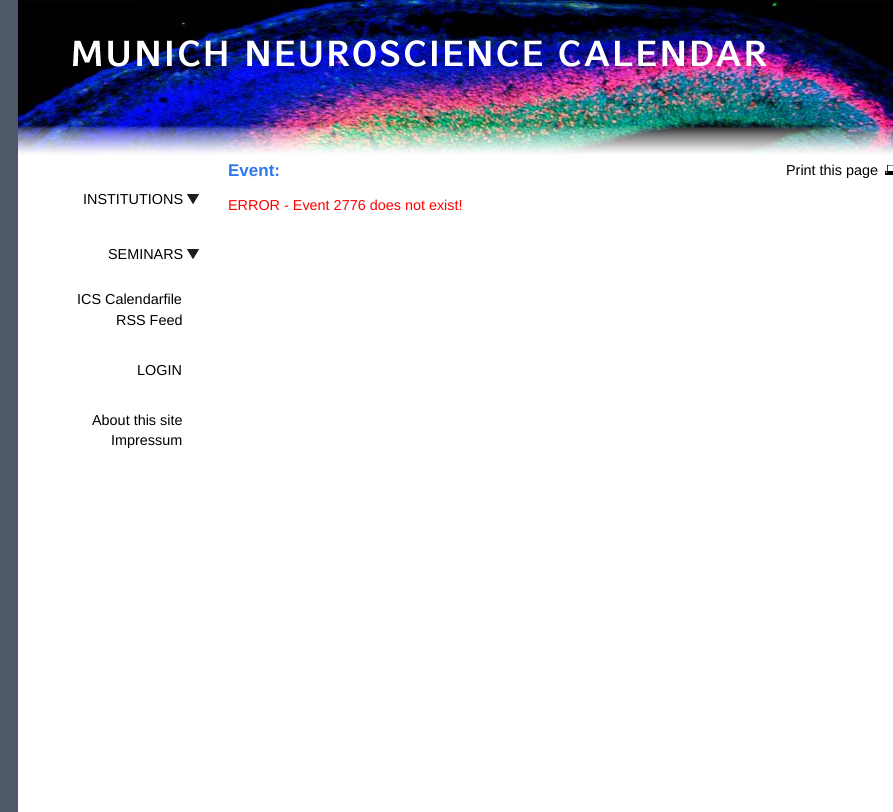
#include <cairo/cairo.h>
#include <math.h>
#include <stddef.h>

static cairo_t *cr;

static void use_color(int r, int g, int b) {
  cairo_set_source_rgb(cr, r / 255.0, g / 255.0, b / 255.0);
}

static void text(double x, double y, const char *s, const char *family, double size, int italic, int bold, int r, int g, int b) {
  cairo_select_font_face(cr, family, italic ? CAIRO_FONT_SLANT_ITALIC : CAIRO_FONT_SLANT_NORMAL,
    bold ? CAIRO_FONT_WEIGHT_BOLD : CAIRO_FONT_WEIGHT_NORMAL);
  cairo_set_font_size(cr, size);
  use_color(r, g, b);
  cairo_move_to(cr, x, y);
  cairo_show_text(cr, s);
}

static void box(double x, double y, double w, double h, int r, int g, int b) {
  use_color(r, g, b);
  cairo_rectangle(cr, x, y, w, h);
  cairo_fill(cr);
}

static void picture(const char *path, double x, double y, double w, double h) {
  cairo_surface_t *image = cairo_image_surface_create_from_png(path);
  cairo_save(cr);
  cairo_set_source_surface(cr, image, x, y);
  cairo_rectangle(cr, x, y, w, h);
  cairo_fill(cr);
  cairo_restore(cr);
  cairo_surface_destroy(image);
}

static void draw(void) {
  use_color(255, 255, 255);
  cairo_paint(cr);
  box(0, 0, 18, 812, 78, 88, 105);
  picture("img_01.png", 18, 0, 875, 155);
  picture("img_02.png", 73, 40, 694, 27);
  picture("img_03.png", 885, 165, 8, 10);
  picture("img_04.png", 187, 194, 12, 10);
  picture("img_04.png", 187, 249, 12, 10);
  text(228, 176, "Event:", "Liberation Sans", 17, 0, 1, 46, 120, 239);
  text(786, 175, "Print this page", "Liberation Sans", 14.4, 0, 0, 0, 0, 0);
  text(228, 210, "ERROR - Event 2776 does not exist!", "Liberation Sans", 14.4, 0, 0, 255, 0, 0);
  text(83, 204, "INSTITUTIONS", "Liberation Sans", 14.4, 0, 0, 0, 0, 0);
  text(108, 259, "SEMINARS", "Liberation Sans", 14.4, 0, 0, 0, 0, 0);
  text(77, 304, "ICS Calendarfile", "Liberation Sans", 14.4, 0, 0, 0, 0, 0);
  text(116, 325, "RSS Feed", "Liberation Sans", 14.4, 0, 0, 0, 0, 0);
  text(137, 375, "LOGIN", "Liberation Sans", 14.4, 0, 0, 0, 0, 0);
  text(92, 425, "About this site", "Liberation Sans", 14.4, 0, 0, 0, 0, 0);
  text(111, 445, "Impressum", "Liberation Sans", 14.4, 0, 0, 0, 0, 0);
}

int main(void) {
  cairo_surface_t *surface = cairo_image_surface_create(CAIRO_FORMAT_RGB24, 893, 812);
  cr = cairo_create(surface);
  cairo_font_options_t *options = cairo_font_options_create();
  cairo_font_options_set_hint_metrics(options, CAIRO_HINT_METRICS_OFF);
  cairo_font_options_set_hint_style(options, CAIRO_HINT_STYLE_NONE);
  cairo_set_font_options(cr, options);
  cairo_set_miter_limit(cr, 4);
  draw();
  cairo_surface_write_to_png(surface, "out.png");
  cairo_font_options_destroy(options);
  cairo_destroy(cr);
  cairo_surface_destroy(surface);
  return 0;
}
